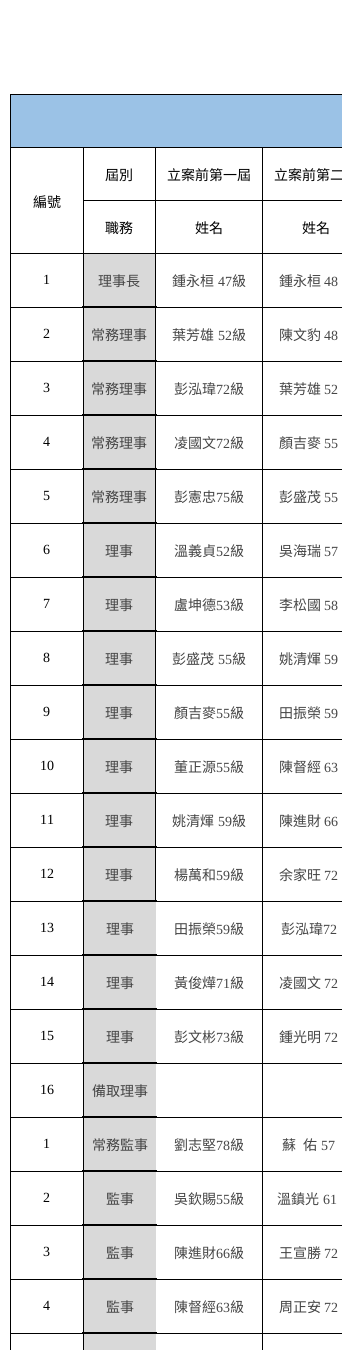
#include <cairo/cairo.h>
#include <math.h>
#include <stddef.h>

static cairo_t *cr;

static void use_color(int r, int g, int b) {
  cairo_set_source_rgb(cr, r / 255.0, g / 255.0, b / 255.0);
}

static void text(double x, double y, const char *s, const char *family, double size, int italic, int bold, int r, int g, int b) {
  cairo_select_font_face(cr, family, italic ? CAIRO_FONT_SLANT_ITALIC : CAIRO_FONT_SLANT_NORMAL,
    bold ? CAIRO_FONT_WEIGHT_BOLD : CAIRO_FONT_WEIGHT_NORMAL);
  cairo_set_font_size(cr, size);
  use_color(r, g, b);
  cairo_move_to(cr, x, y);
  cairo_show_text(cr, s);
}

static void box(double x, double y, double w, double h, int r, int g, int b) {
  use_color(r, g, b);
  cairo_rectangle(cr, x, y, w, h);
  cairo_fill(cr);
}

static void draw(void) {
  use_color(255, 255, 255);
  cairo_paint(cr);
  box(11, 95, 331, 52, 155, 194, 230);
  box(10, 94, 332, 1, 0, 0, 0);
  box(262, 1333, 1, 17, 0, 0, 0);
  box(262, 1333, 80, 1, 0, 0, 0);
  box(262, 1279, 1, 55, 0, 0, 0);
  box(262, 1279, 80, 1, 0, 0, 0);
  box(262, 1225, 1, 55, 0, 0, 0);
  box(262, 1225, 80, 1, 0, 0, 0);
  box(262, 1171, 1, 55, 0, 0, 0);
  box(262, 1171, 80, 1, 0, 0, 0);
  box(262, 1117, 1, 55, 0, 0, 0);
  box(262, 1117, 80, 1, 0, 0, 0);
  box(262, 1063, 1, 55, 0, 0, 0);
  box(262, 1063, 80, 1, 0, 0, 0);
  box(262, 1009, 1, 55, 0, 0, 0);
  box(262, 1009, 80, 1, 0, 0, 0);
  box(262, 955, 1, 55, 0, 0, 0);
  box(262, 955, 80, 1, 0, 0, 0);
  box(262, 901, 1, 55, 0, 0, 0);
  box(262, 901, 80, 1, 0, 0, 0);
  box(262, 847, 1, 55, 0, 0, 0);
  box(262, 847, 80, 1, 0, 0, 0);
  box(262, 793, 1, 55, 0, 0, 0);
  box(262, 793, 80, 1, 0, 0, 0);
  box(262, 739, 1, 55, 0, 0, 0);
  box(262, 739, 80, 1, 0, 0, 0);
  box(262, 685, 1, 55, 0, 0, 0);
  box(262, 685, 80, 1, 0, 0, 0);
  box(262, 631, 1, 55, 0, 0, 0);
  box(262, 631, 80, 1, 0, 0, 0);
  box(262, 577, 1, 55, 0, 0, 0);
  box(262, 577, 80, 1, 0, 0, 0);
  box(262, 523, 1, 55, 0, 0, 0);
  box(262, 523, 80, 1, 0, 0, 0);
  box(262, 469, 1, 55, 0, 0, 0);
  box(262, 469, 80, 1, 0, 0, 0);
  box(262, 415, 1, 55, 0, 0, 0);
  box(262, 415, 80, 1, 0, 0, 0);
  box(262, 361, 1, 55, 0, 0, 0);
  box(262, 361, 80, 1, 0, 0, 0);
  box(262, 307, 1, 55, 0, 0, 0);
  box(262, 307, 80, 1, 0, 0, 0);
  box(262, 253, 1, 55, 0, 0, 0);
  box(262, 253, 80, 1, 0, 0, 0);
  box(262, 200, 1, 54, 0, 0, 0);
  box(262, 200, 80, 1, 0, 0, 0);
  box(262, 147, 1, 54, 0, 0, 0);
  box(155, 901, 108, 1, 0, 0, 0);
  box(155, 847, 1, 55, 0, 0, 0);
  box(155, 847, 108, 1, 0, 0, 0);
  box(155, 793, 1, 55, 0, 0, 0);
  box(155, 793, 108, 1, 0, 0, 0);
  box(155, 739, 1, 55, 0, 0, 0);
  box(155, 739, 108, 1, 0, 0, 0);
  box(155, 685, 1, 55, 0, 0, 0);
  box(155, 685, 108, 1, 0, 0, 0);
  box(155, 631, 1, 55, 0, 0, 0);
  box(155, 631, 108, 1, 0, 0, 0);
  box(155, 577, 1, 55, 0, 0, 0);
  box(155, 577, 108, 1, 0, 0, 0);
  box(155, 523, 1, 55, 0, 0, 0);
  box(155, 523, 108, 1, 0, 0, 0);
  box(155, 469, 1, 55, 0, 0, 0);
  box(155, 469, 108, 1, 0, 0, 0);
  box(155, 415, 1, 55, 0, 0, 0);
  box(155, 415, 108, 1, 0, 0, 0);
  box(155, 361, 1, 55, 0, 0, 0);
  box(155, 361, 108, 1, 0, 0, 0);
  box(155, 307, 1, 55, 0, 0, 0);
  box(155, 307, 108, 1, 0, 0, 0);
  box(155, 253, 1, 55, 0, 0, 0);
  box(155, 253, 108, 1, 0, 0, 0);
  box(155, 200, 1, 54, 0, 0, 0);
  box(155, 200, 108, 1, 0, 0, 0);
  box(155, 147, 1, 54, 0, 0, 0);
  box(83, 200, 73, 1, 0, 0, 0);
  box(83, 253, 1, 1097, 0, 0, 0);
  box(83, 253, 73, 1, 0, 0, 0);
  box(83, 147, 1, 107, 0, 0, 0);
  box(10, 1333, 1, 17, 0, 0, 0);
  box(10, 1333, 74, 1, 0, 0, 0);
  box(10, 1279, 1, 55, 0, 0, 0);
  box(10, 1279, 74, 1, 0, 0, 0);
  box(10, 1225, 1, 55, 0, 0, 0);
  box(10, 1225, 74, 1, 0, 0, 0);
  box(10, 1171, 1, 55, 0, 0, 0);
  box(10, 1171, 74, 1, 0, 0, 0);
  box(10, 1117, 1, 55, 0, 0, 0);
  box(10, 1117, 74, 1, 0, 0, 0);
  box(10, 1063, 1, 55, 0, 0, 0);
  box(10, 1063, 74, 1, 0, 0, 0);
  box(10, 1009, 1, 55, 0, 0, 0);
  box(10, 1009, 74, 1, 0, 0, 0);
  box(10, 955, 1, 55, 0, 0, 0);
  box(10, 955, 74, 1, 0, 0, 0);
  box(10, 901, 1, 55, 0, 0, 0);
  box(10, 901, 74, 1, 0, 0, 0);
  box(10, 847, 1, 55, 0, 0, 0);
  box(10, 847, 74, 1, 0, 0, 0);
  box(10, 793, 1, 55, 0, 0, 0);
  box(10, 793, 74, 1, 0, 0, 0);
  box(10, 739, 1, 55, 0, 0, 0);
  box(10, 739, 74, 1, 0, 0, 0);
  box(10, 685, 1, 55, 0, 0, 0);
  box(10, 685, 74, 1, 0, 0, 0);
  box(10, 631, 1, 55, 0, 0, 0);
  box(10, 631, 74, 1, 0, 0, 0);
  box(10, 577, 1, 55, 0, 0, 0);
  box(10, 577, 74, 1, 0, 0, 0);
  box(10, 523, 1, 55, 0, 0, 0);
  box(10, 523, 74, 1, 0, 0, 0);
  box(10, 469, 1, 55, 0, 0, 0);
  box(10, 469, 74, 1, 0, 0, 0);
  box(10, 415, 1, 55, 0, 0, 0);
  box(10, 415, 74, 1, 0, 0, 0);
  box(10, 361, 1, 55, 0, 0, 0);
  box(10, 361, 74, 1, 0, 0, 0);
  box(10, 307, 1, 55, 0, 0, 0);
  box(10, 307, 74, 1, 0, 0, 0);
  box(10, 253, 1, 55, 0, 0, 0);
  box(10, 253, 74, 1, 0, 0, 0);
  box(10, 147, 1, 107, 0, 0, 0);
  box(10, 147, 332, 1, 0, 0, 0);
  box(10, 94, 1, 54, 0, 0, 0);
  box(84, 1334, 72, 16, 217, 217, 217);
  box(84, 254, 71, 52, 217, 217, 217);
  box(82, 306, 75, 2, 0, 0, 0);
  box(84, 308, 71, 52, 217, 217, 217);
  box(82, 360, 75, 2, 0, 0, 0);
  box(84, 362, 71, 52, 217, 217, 217);
  box(82, 414, 75, 2, 0, 0, 0);
  box(84, 416, 71, 52, 217, 217, 217);
  box(82, 468, 75, 2, 0, 0, 0);
  box(84, 470, 71, 52, 217, 217, 217);
  box(82, 522, 75, 2, 0, 0, 0);
  box(84, 524, 71, 52, 217, 217, 217);
  box(82, 576, 75, 2, 0, 0, 0);
  box(84, 578, 71, 52, 217, 217, 217);
  box(82, 630, 75, 2, 0, 0, 0);
  box(84, 632, 71, 52, 217, 217, 217);
  box(82, 684, 75, 2, 0, 0, 0);
  box(84, 686, 71, 52, 217, 217, 217);
  box(82, 738, 75, 2, 0, 0, 0);
  box(84, 740, 71, 52, 217, 217, 217);
  box(82, 792, 75, 2, 0, 0, 0);
  box(84, 794, 71, 52, 217, 217, 217);
  box(82, 846, 75, 2, 0, 0, 0);
  box(84, 848, 71, 52, 217, 217, 217);
  box(82, 900, 75, 2, 0, 0, 0);
  box(84, 902, 72, 52, 217, 217, 217);
  box(155, 955, 108, 1, 0, 0, 0);
  box(82, 954, 75, 2, 0, 0, 0);
  box(84, 956, 72, 52, 217, 217, 217);
  box(155, 1009, 108, 1, 0, 0, 0);
  box(82, 1008, 75, 2, 0, 0, 0);
  box(84, 1010, 72, 52, 217, 217, 217);
  box(155, 1063, 108, 1, 0, 0, 0);
  box(82, 1062, 75, 2, 0, 0, 0);
  box(84, 1064, 72, 52, 217, 217, 217);
  box(155, 1117, 108, 1, 0, 0, 0);
  box(82, 1116, 75, 2, 0, 0, 0);
  box(84, 1118, 72, 52, 217, 217, 217);
  box(155, 1171, 108, 1, 0, 0, 0);
  box(82, 1170, 75, 2, 0, 0, 0);
  box(84, 1172, 72, 52, 217, 217, 217);
  box(155, 1225, 108, 1, 0, 0, 0);
  box(82, 1224, 75, 2, 0, 0, 0);
  box(84, 1226, 72, 52, 217, 217, 217);
  box(155, 1279, 108, 1, 0, 0, 0);
  box(82, 1278, 75, 2, 0, 0, 0);
  box(84, 1280, 72, 52, 217, 217, 217);
  box(155, 1333, 108, 1, 0, 0, 0);
  box(82, 1332, 75, 2, 0, 0, 0);
  text(105, 180, "屆別", "Noto Sans CJK TC", 14, 0, 0, 0, 0, 0);
  text(167, 180, "立案前第一屆", "Noto Sans CJK TC", 14, 0, 0, 0, 0, 0);
  text(274, 180, "立案前第二", "Noto Sans CJK TC", 14, 0, 0, 0, 0, 0);
  text(33, 207, "編號", "Noto Sans CJK TC", 14, 0, 0, 0, 0, 0);
  text(105, 233, "職務", "Noto Sans CJK TC", 14, 0, 0, 0, 0, 0);
  text(195, 233, "姓名", "Noto Sans CJK TC", 14, 0, 0, 0, 0, 0);
  text(302, 233, "姓名", "Noto Sans CJK TC", 14, 0, 0, 0, 0, 0);
  text(43, 284, "1", "Liberation Serif", 14, 0, 0, 0, 0, 0);
  text(98, 286, "理事長", "Noto Sans CJK TC", 14, 0, 0, 69, 69, 69);
  text(172, 286, "鍾永桓", "Noto Sans CJK TC", 14, 0, 0, 69, 69, 69);
  text(218, 286, "47", "Liberation Serif", 14, 0, 0, 69, 69, 69);
  text(232, 286, "級", "Noto Sans CJK TC", 14, 0, 0, 69, 69, 69);
  text(279, 286, "鍾永桓", "Noto Sans CJK TC", 14, 0, 0, 69, 69, 69);
  text(324, 286, "48", "Liberation Serif", 14, 0, 0, 69, 69, 69);
  text(43, 338, "2", "Liberation Serif", 14, 0, 0, 0, 0, 0);
  text(91, 340, "常務理事", "Noto Sans CJK TC", 14, 0, 0, 69, 69, 69);
  text(172, 340, "葉芳雄", "Noto Sans CJK TC", 14, 0, 0, 69, 69, 69);
  text(218, 340, "52", "Liberation Serif", 14, 0, 0, 69, 69, 69);
  text(232, 340, "級", "Noto Sans CJK TC", 14, 0, 0, 69, 69, 69);
  text(279, 340, "陳文豹", "Noto Sans CJK TC", 14, 0, 0, 69, 69, 69);
  text(324, 340, "48", "Liberation Serif", 14, 0, 0, 69, 69, 69);
  text(43, 392, "3", "Liberation Serif", 14, 0, 0, 0, 0, 0);
  text(91, 394, "常務理事", "Noto Sans CJK TC", 14, 0, 0, 69, 69, 69);
  text(174, 394, "彭泓瑋", "Noto Sans CJK TC", 14, 0, 0, 69, 69, 69);
  text(216, 394, "72", "Liberation Serif", 14, 0, 0, 69, 69, 69);
  text(230, 394, "級", "Noto Sans CJK TC", 14, 0, 0, 69, 69, 69);
  text(279, 394, "葉芳雄", "Noto Sans CJK TC", 14, 0, 0, 69, 69, 69);
  text(324, 394, "52", "Liberation Serif", 14, 0, 0, 69, 69, 69);
  text(43, 446, "4", "Liberation Serif", 14, 0, 0, 0, 0, 0);
  text(91, 448, "常務理事", "Noto Sans CJK TC", 14, 0, 0, 69, 69, 69);
  text(174, 448, "凌國文", "Noto Sans CJK TC", 14, 0, 0, 69, 69, 69);
  text(216, 448, "72", "Liberation Serif", 14, 0, 0, 69, 69, 69);
  text(230, 448, "級", "Noto Sans CJK TC", 14, 0, 0, 69, 69, 69);
  text(279, 448, "顏吉麥", "Noto Sans CJK TC", 14, 0, 0, 69, 69, 69);
  text(324, 448, "55", "Liberation Serif", 14, 0, 0, 69, 69, 69);
  text(43, 500, "5", "Liberation Serif", 14, 0, 0, 0, 0, 0);
  text(91, 502, "常務理事", "Noto Sans CJK TC", 14, 0, 0, 69, 69, 69);
  text(174, 502, "彭憲忠", "Noto Sans CJK TC", 14, 0, 0, 69, 69, 69);
  text(216, 502, "75", "Liberation Serif", 14, 0, 0, 69, 69, 69);
  text(230, 502, "級", "Noto Sans CJK TC", 14, 0, 0, 69, 69, 69);
  text(279, 502, "彭盛茂", "Noto Sans CJK TC", 14, 0, 0, 69, 69, 69);
  text(324, 502, "55", "Liberation Serif", 14, 0, 0, 69, 69, 69);
  text(43, 554, "6", "Liberation Serif", 14, 0, 0, 0, 0, 0);
  text(105, 556, "理事", "Noto Sans CJK TC", 14, 0, 0, 69, 69, 69);
  text(174, 556, "溫義貞", "Noto Sans CJK TC", 14, 0, 0, 69, 69, 69);
  text(216, 556, "52", "Liberation Serif", 14, 0, 0, 69, 69, 69);
  text(230, 556, "級", "Noto Sans CJK TC", 14, 0, 0, 69, 69, 69);
  text(279, 556, "吳海瑞", "Noto Sans CJK TC", 14, 0, 0, 69, 69, 69);
  text(324, 556, "57", "Liberation Serif", 14, 0, 0, 69, 69, 69);
  text(43, 608, "7", "Liberation Serif", 14, 0, 0, 0, 0, 0);
  text(105, 610, "理事", "Noto Sans CJK TC", 14, 0, 0, 69, 69, 69);
  text(174, 610, "盧坤德", "Noto Sans CJK TC", 14, 0, 0, 69, 69, 69);
  text(216, 610, "53", "Liberation Serif", 14, 0, 0, 69, 69, 69);
  text(230, 610, "級", "Noto Sans CJK TC", 14, 0, 0, 69, 69, 69);
  text(279, 610, "李松國", "Noto Sans CJK TC", 14, 0, 0, 69, 69, 69);
  text(324, 610, "58", "Liberation Serif", 14, 0, 0, 69, 69, 69);
  text(43, 662, "8", "Liberation Serif", 14, 0, 0, 0, 0, 0);
  text(105, 664, "理事", "Noto Sans CJK TC", 14, 0, 0, 69, 69, 69);
  text(172, 664, "彭盛茂", "Noto Sans CJK TC", 14, 0, 0, 69, 69, 69);
  text(218, 664, "55", "Liberation Serif", 14, 0, 0, 69, 69, 69);
  text(232, 664, "級", "Noto Sans CJK TC", 14, 0, 0, 69, 69, 69);
  text(279, 664, "姚清煇", "Noto Sans CJK TC", 14, 0, 0, 69, 69, 69);
  text(324, 664, "59", "Liberation Serif", 14, 0, 0, 69, 69, 69);
  text(43, 716, "9", "Liberation Serif", 14, 0, 0, 0, 0, 0);
  text(105, 718, "理事", "Noto Sans CJK TC", 14, 0, 0, 69, 69, 69);
  text(174, 718, "顏吉麥", "Noto Sans CJK TC", 14, 0, 0, 69, 69, 69);
  text(216, 718, "55", "Liberation Serif", 14, 0, 0, 69, 69, 69);
  text(230, 718, "級", "Noto Sans CJK TC", 14, 0, 0, 69, 69, 69);
  text(279, 718, "田振榮", "Noto Sans CJK TC", 14, 0, 0, 69, 69, 69);
  text(324, 718, "59", "Liberation Serif", 14, 0, 0, 69, 69, 69);
  text(40, 770, "10", "Liberation Serif", 14, 0, 0, 0, 0, 0);
  text(105, 772, "理事", "Noto Sans CJK TC", 14, 0, 0, 69, 69, 69);
  text(174, 772, "董正源", "Noto Sans CJK TC", 14, 0, 0, 69, 69, 69);
  text(216, 772, "55", "Liberation Serif", 14, 0, 0, 69, 69, 69);
  text(230, 772, "級", "Noto Sans CJK TC", 14, 0, 0, 69, 69, 69);
  text(279, 772, "陳督經", "Noto Sans CJK TC", 14, 0, 0, 69, 69, 69);
  text(324, 772, "63", "Liberation Serif", 14, 0, 0, 69, 69, 69);
  text(40, 824, "11", "Liberation Serif", 14, 0, 0, 0, 0, 0);
  text(105, 826, "理事", "Noto Sans CJK TC", 14, 0, 0, 69, 69, 69);
  text(172, 826, "姚清煇", "Noto Sans CJK TC", 14, 0, 0, 69, 69, 69);
  text(218, 826, "59", "Liberation Serif", 14, 0, 0, 69, 69, 69);
  text(232, 826, "級", "Noto Sans CJK TC", 14, 0, 0, 69, 69, 69);
  text(279, 826, "陳進財", "Noto Sans CJK TC", 14, 0, 0, 69, 69, 69);
  text(324, 826, "66", "Liberation Serif", 14, 0, 0, 69, 69, 69);
  text(40, 878, "12", "Liberation Serif", 14, 0, 0, 0, 0, 0);
  text(105, 880, "理事", "Noto Sans CJK TC", 14, 0, 0, 69, 69, 69);
  text(174, 880, "楊萬和", "Noto Sans CJK TC", 14, 0, 0, 69, 69, 69);
  text(216, 880, "59", "Liberation Serif", 14, 0, 0, 69, 69, 69);
  text(230, 880, "級", "Noto Sans CJK TC", 14, 0, 0, 69, 69, 69);
  text(279, 880, "余家旺", "Noto Sans CJK TC", 14, 0, 0, 69, 69, 69);
  text(324, 880, "72", "Liberation Serif", 14, 0, 0, 69, 69, 69);
  text(40, 932, "13", "Liberation Serif", 14, 0, 0, 0, 0, 0);
  text(106, 934, "理事", "Noto Sans CJK TC", 14, 0, 0, 69, 69, 69);
  text(174, 934, "田振榮", "Noto Sans CJK TC", 14, 0, 0, 69, 69, 69);
  text(216, 934, "59", "Liberation Serif", 14, 0, 0, 69, 69, 69);
  text(230, 934, "級", "Noto Sans CJK TC", 14, 0, 0, 69, 69, 69);
  text(281, 934, "彭泓瑋", "Noto Sans CJK TC", 14, 0, 0, 69, 69, 69);
  text(323, 934, "72", "Liberation Serif", 14, 0, 0, 69, 69, 69);
  text(40, 986, "14", "Liberation Serif", 14, 0, 0, 0, 0, 0);
  text(106, 988, "理事", "Noto Sans CJK TC", 14, 0, 0, 69, 69, 69);
  text(174, 988, "黃俊燁", "Noto Sans CJK TC", 14, 0, 0, 69, 69, 69);
  text(216, 988, "71", "Liberation Serif", 14, 0, 0, 69, 69, 69);
  text(230, 988, "級", "Noto Sans CJK TC", 14, 0, 0, 69, 69, 69);
  text(279, 988, "凌國文", "Noto Sans CJK TC", 14, 0, 0, 69, 69, 69);
  text(324, 988, "72", "Liberation Serif", 14, 0, 0, 69, 69, 69);
  text(40, 1040, "15", "Liberation Serif", 14, 0, 0, 0, 0, 0);
  text(106, 1042, "理事", "Noto Sans CJK TC", 14, 0, 0, 69, 69, 69);
  text(174, 1042, "彭文彬", "Noto Sans CJK TC", 14, 0, 0, 69, 69, 69);
  text(216, 1042, "73", "Liberation Serif", 14, 0, 0, 69, 69, 69);
  text(230, 1042, "級", "Noto Sans CJK TC", 14, 0, 0, 69, 69, 69);
  text(279, 1042, "鍾光明", "Noto Sans CJK TC", 14, 0, 0, 69, 69, 69);
  text(324, 1042, "72", "Liberation Serif", 14, 0, 0, 69, 69, 69);
  text(40, 1094, "16", "Liberation Serif", 14, 0, 0, 0, 0, 0);
  text(92, 1096, "備取理事", "Noto Sans CJK TC", 14, 0, 0, 69, 69, 69);
  text(43, 1148, "1", "Liberation Serif", 14, 0, 0, 0, 0, 0);
  text(92, 1150, "常務監事", "Noto Sans CJK TC", 14, 0, 0, 69, 69, 69);
  text(174, 1150, "劉志堅", "Noto Sans CJK TC", 14, 0, 0, 69, 69, 69);
  text(216, 1150, "78", "Liberation Serif", 14, 0, 0, 69, 69, 69);
  text(230, 1150, "級", "Noto Sans CJK TC", 14, 0, 0, 69, 69, 69);
  text(282, 1150, "蘇", "Noto Sans CJK TC", 14, 0, 0, 69, 69, 69);
  text(303, 1150, "佑", "Noto Sans CJK TC", 14, 0, 0, 69, 69, 69);
  text(321, 1150, "57", "Liberation Serif", 14, 0, 0, 69, 69, 69);
  text(43, 1202, "2", "Liberation Serif", 14, 0, 0, 0, 0, 0);
  text(106, 1204, "監事", "Noto Sans CJK TC", 14, 0, 0, 69, 69, 69);
  text(174, 1204, "吳欽賜", "Noto Sans CJK TC", 14, 0, 0, 69, 69, 69);
  text(216, 1204, "55", "Liberation Serif", 14, 0, 0, 69, 69, 69);
  text(230, 1204, "級", "Noto Sans CJK TC", 14, 0, 0, 69, 69, 69);
  text(277, 1204, "溫鎮光", "Noto Sans CJK TC", 14, 0, 0, 69, 69, 69);
  text(323, 1204, "61", "Liberation Serif", 14, 0, 0, 69, 69, 69);
  text(43, 1256, "3", "Liberation Serif", 14, 0, 0, 0, 0, 0);
  text(106, 1258, "監事", "Noto Sans CJK TC", 14, 0, 0, 69, 69, 69);
  text(174, 1258, "陳進財", "Noto Sans CJK TC", 14, 0, 0, 69, 69, 69);
  text(216, 1258, "66", "Liberation Serif", 14, 0, 0, 69, 69, 69);
  text(230, 1258, "級", "Noto Sans CJK TC", 14, 0, 0, 69, 69, 69);
  text(279, 1258, "王宣勝", "Noto Sans CJK TC", 14, 0, 0, 69, 69, 69);
  text(324, 1258, "72", "Liberation Serif", 14, 0, 0, 69, 69, 69);
  text(43, 1310, "4", "Liberation Serif", 14, 0, 0, 0, 0, 0);
  text(106, 1312, "監事", "Noto Sans CJK TC", 14, 0, 0, 69, 69, 69);
  text(174, 1312, "陳督經", "Noto Sans CJK TC", 14, 0, 0, 69, 69, 69);
  text(216, 1312, "63", "Liberation Serif", 14, 0, 0, 69, 69, 69);
  text(230, 1312, "級", "Noto Sans CJK TC", 14, 0, 0, 69, 69, 69);
  text(279, 1312, "周正安", "Noto Sans CJK TC", 14, 0, 0, 69, 69, 69);
  text(324, 1312, "72", "Liberation Serif", 14, 0, 0, 69, 69, 69);
}

int main(void) {
  cairo_surface_t *surface = cairo_image_surface_create(CAIRO_FORMAT_RGB24, 342, 1350);
  cr = cairo_create(surface);
  cairo_font_options_t *options = cairo_font_options_create();
  cairo_font_options_set_hint_metrics(options, CAIRO_HINT_METRICS_OFF);
  cairo_font_options_set_hint_style(options, CAIRO_HINT_STYLE_NONE);
  cairo_set_font_options(cr, options);
  cairo_set_miter_limit(cr, 4);
  draw();
  cairo_surface_write_to_png(surface, "out.png");
  cairo_font_options_destroy(options);
  cairo_destroy(cr);
  cairo_surface_destroy(surface);
  return 0;
}
